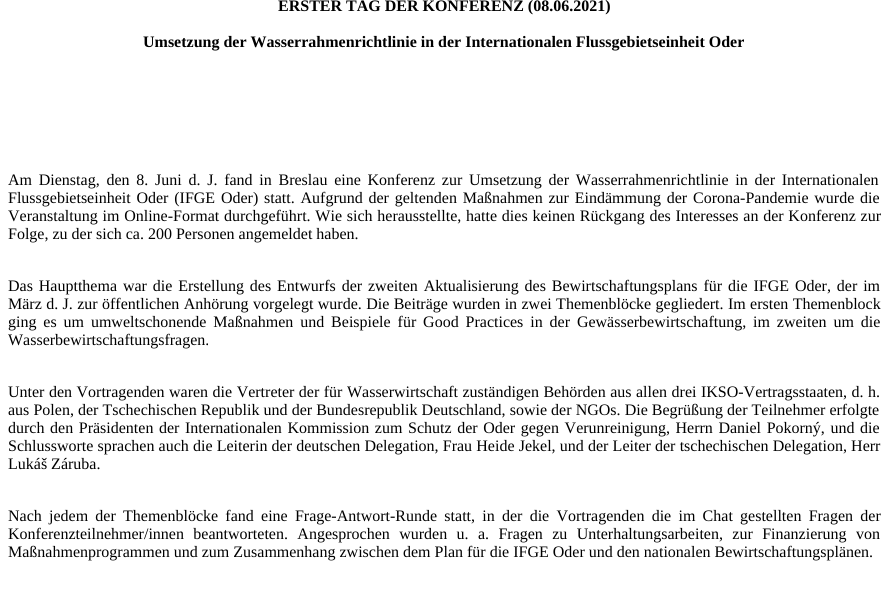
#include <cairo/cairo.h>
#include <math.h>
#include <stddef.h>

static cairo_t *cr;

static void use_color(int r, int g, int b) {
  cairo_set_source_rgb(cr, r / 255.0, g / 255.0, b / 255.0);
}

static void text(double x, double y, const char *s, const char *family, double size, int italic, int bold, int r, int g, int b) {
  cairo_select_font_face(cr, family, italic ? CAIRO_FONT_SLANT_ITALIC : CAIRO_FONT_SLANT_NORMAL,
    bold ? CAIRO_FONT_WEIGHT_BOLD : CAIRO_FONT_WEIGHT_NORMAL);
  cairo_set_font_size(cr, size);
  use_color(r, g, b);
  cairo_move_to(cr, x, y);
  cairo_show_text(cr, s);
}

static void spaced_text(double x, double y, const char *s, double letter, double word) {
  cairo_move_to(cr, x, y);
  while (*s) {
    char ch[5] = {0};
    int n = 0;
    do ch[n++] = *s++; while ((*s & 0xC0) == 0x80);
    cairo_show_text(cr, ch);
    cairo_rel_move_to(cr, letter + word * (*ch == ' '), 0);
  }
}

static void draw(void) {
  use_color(255, 255, 255);
  cairo_paint(cr);
  text(278, 11, "ERSTER TAG DER KONFERENZ (08.06.2021)", "Liberation Serif", 16, 0, 1, 0, 0, 0);
  text(143, 47, "Umsetzung der Wasserrahmenrichtlinie in der Internationalen Flussgebietseinheit Oder", "Liberation Serif", 16, 0, 1, 0, 0, 0);
  cairo_select_font_face(cr, "Liberation Serif", CAIRO_FONT_SLANT_NORMAL, CAIRO_FONT_WEIGHT_NORMAL);
  spaced_text(8, 185, "Am Dienstag, den 8. Juni d. J. fand in Breslau eine Konferenz zur Umsetzung der Wasserrahmenrichtlinie in der Internationalen", 0, 2.75);
  spaced_text(8, 203, "Flussgebietseinheit Oder (IFGE Oder) statt. Aufgrund der geltenden Maßnahmen zur Eindämmung der Corona-Pandemie wurde die", 0, 1.8);
  spaced_text(8, 221, "Veranstaltung im Online-Format durchgeführt. Wie sich herausstellte, hatte dies keinen Rückgang des Interesses an der Konferenz zur", 0, 0.75);
  text(8, 239, "Folge, zu der sich ca. 200 Personen angemeldet haben.", "Liberation Serif", 16, 0, 0, 0, 0, 0);
  spaced_text(8, 291, "Das Hauptthema war die Erstellung des Entwurfs der zweiten Aktualisierung des Bewirtschaftungsplans für die IFGE Oder, der im", 0, 1.9);
  spaced_text(8, 309, "März d. J. zur öffentlichen Anhörung vorgelegt wurde. Die Beiträge wurden in zwei Themenblöcke gegliedert. Im ersten Themenblock", 0, 0.4);
  spaced_text(8, 327, "ging es um umweltschonende Maßnahmen und Beispiele für Good Practices in der Gewässerbewirtschaftung, im zweiten um die", 0, 2.9);
  text(8, 345, "Wasserbewirtschaftungsfragen.", "Liberation Serif", 16, 0, 0, 0, 0, 0);
  spaced_text(8, 397, "Unter den Vortragenden waren die Vertreter der für Wasserwirtschaft zuständigen Behörden aus allen drei IKSO-Vertragsstaaten, d. h.", 0, 0.5);
  spaced_text(8, 415, "aus Polen, der Tschechischen Republik und der Bundesrepublik Deutschland, sowie der NGOs. Die Begrüßung der Teilnehmer erfolgte", 0, 0.1);
  spaced_text(8, 433, "durch den Präsidenten der Internationalen Kommission zum Schutz der Oder gegen Verunreinigung, Herrn Daniel Pokorný, und die", 0, 1.6);
  spaced_text(8, 451, "Schlussworte sprachen auch die Leiterin der deutschen Delegation, Frau Heide Jekel, und der Leiter der tschechischen Delegation, Herr", 0, 0.2);
  text(8, 469, "Lukáš Záruba.", "Liberation Serif", 16, 0, 0, 0, 0, 0);
  spaced_text(8, 521, "Nach jedem der Themenblöcke fand eine Frage-Antwort-Runde statt, in der die Vortragenden die im Chat gestellten Fragen der", 0, 3.25);
  spaced_text(8, 539, "Konferenzteilnehmer/innen beantworteten. Angesprochen wurden u. a. Fragen zu Unterhaltungsarbeiten, zur Finanzierung von", 0, 5.4);
  text(8, 557, "Maßnahmenprogrammen und zum Zusammenhang zwischen dem Plan für die IFGE Oder und den nationalen Bewirtschaftungsplänen.", "Liberation Serif", 16, 0, 0, 0, 0, 0);
}

int main(void) {
  cairo_surface_t *surface = cairo_image_surface_create(CAIRO_FORMAT_RGB24, 888, 595);
  cr = cairo_create(surface);
  cairo_font_options_t *options = cairo_font_options_create();
  cairo_font_options_set_hint_metrics(options, CAIRO_HINT_METRICS_OFF);
  cairo_font_options_set_hint_style(options, CAIRO_HINT_STYLE_NONE);
  cairo_set_font_options(cr, options);
  cairo_set_miter_limit(cr, 4);
  draw();
  cairo_surface_write_to_png(surface, "out.png");
  cairo_font_options_destroy(options);
  cairo_destroy(cr);
  cairo_surface_destroy(surface);
  return 0;
}
